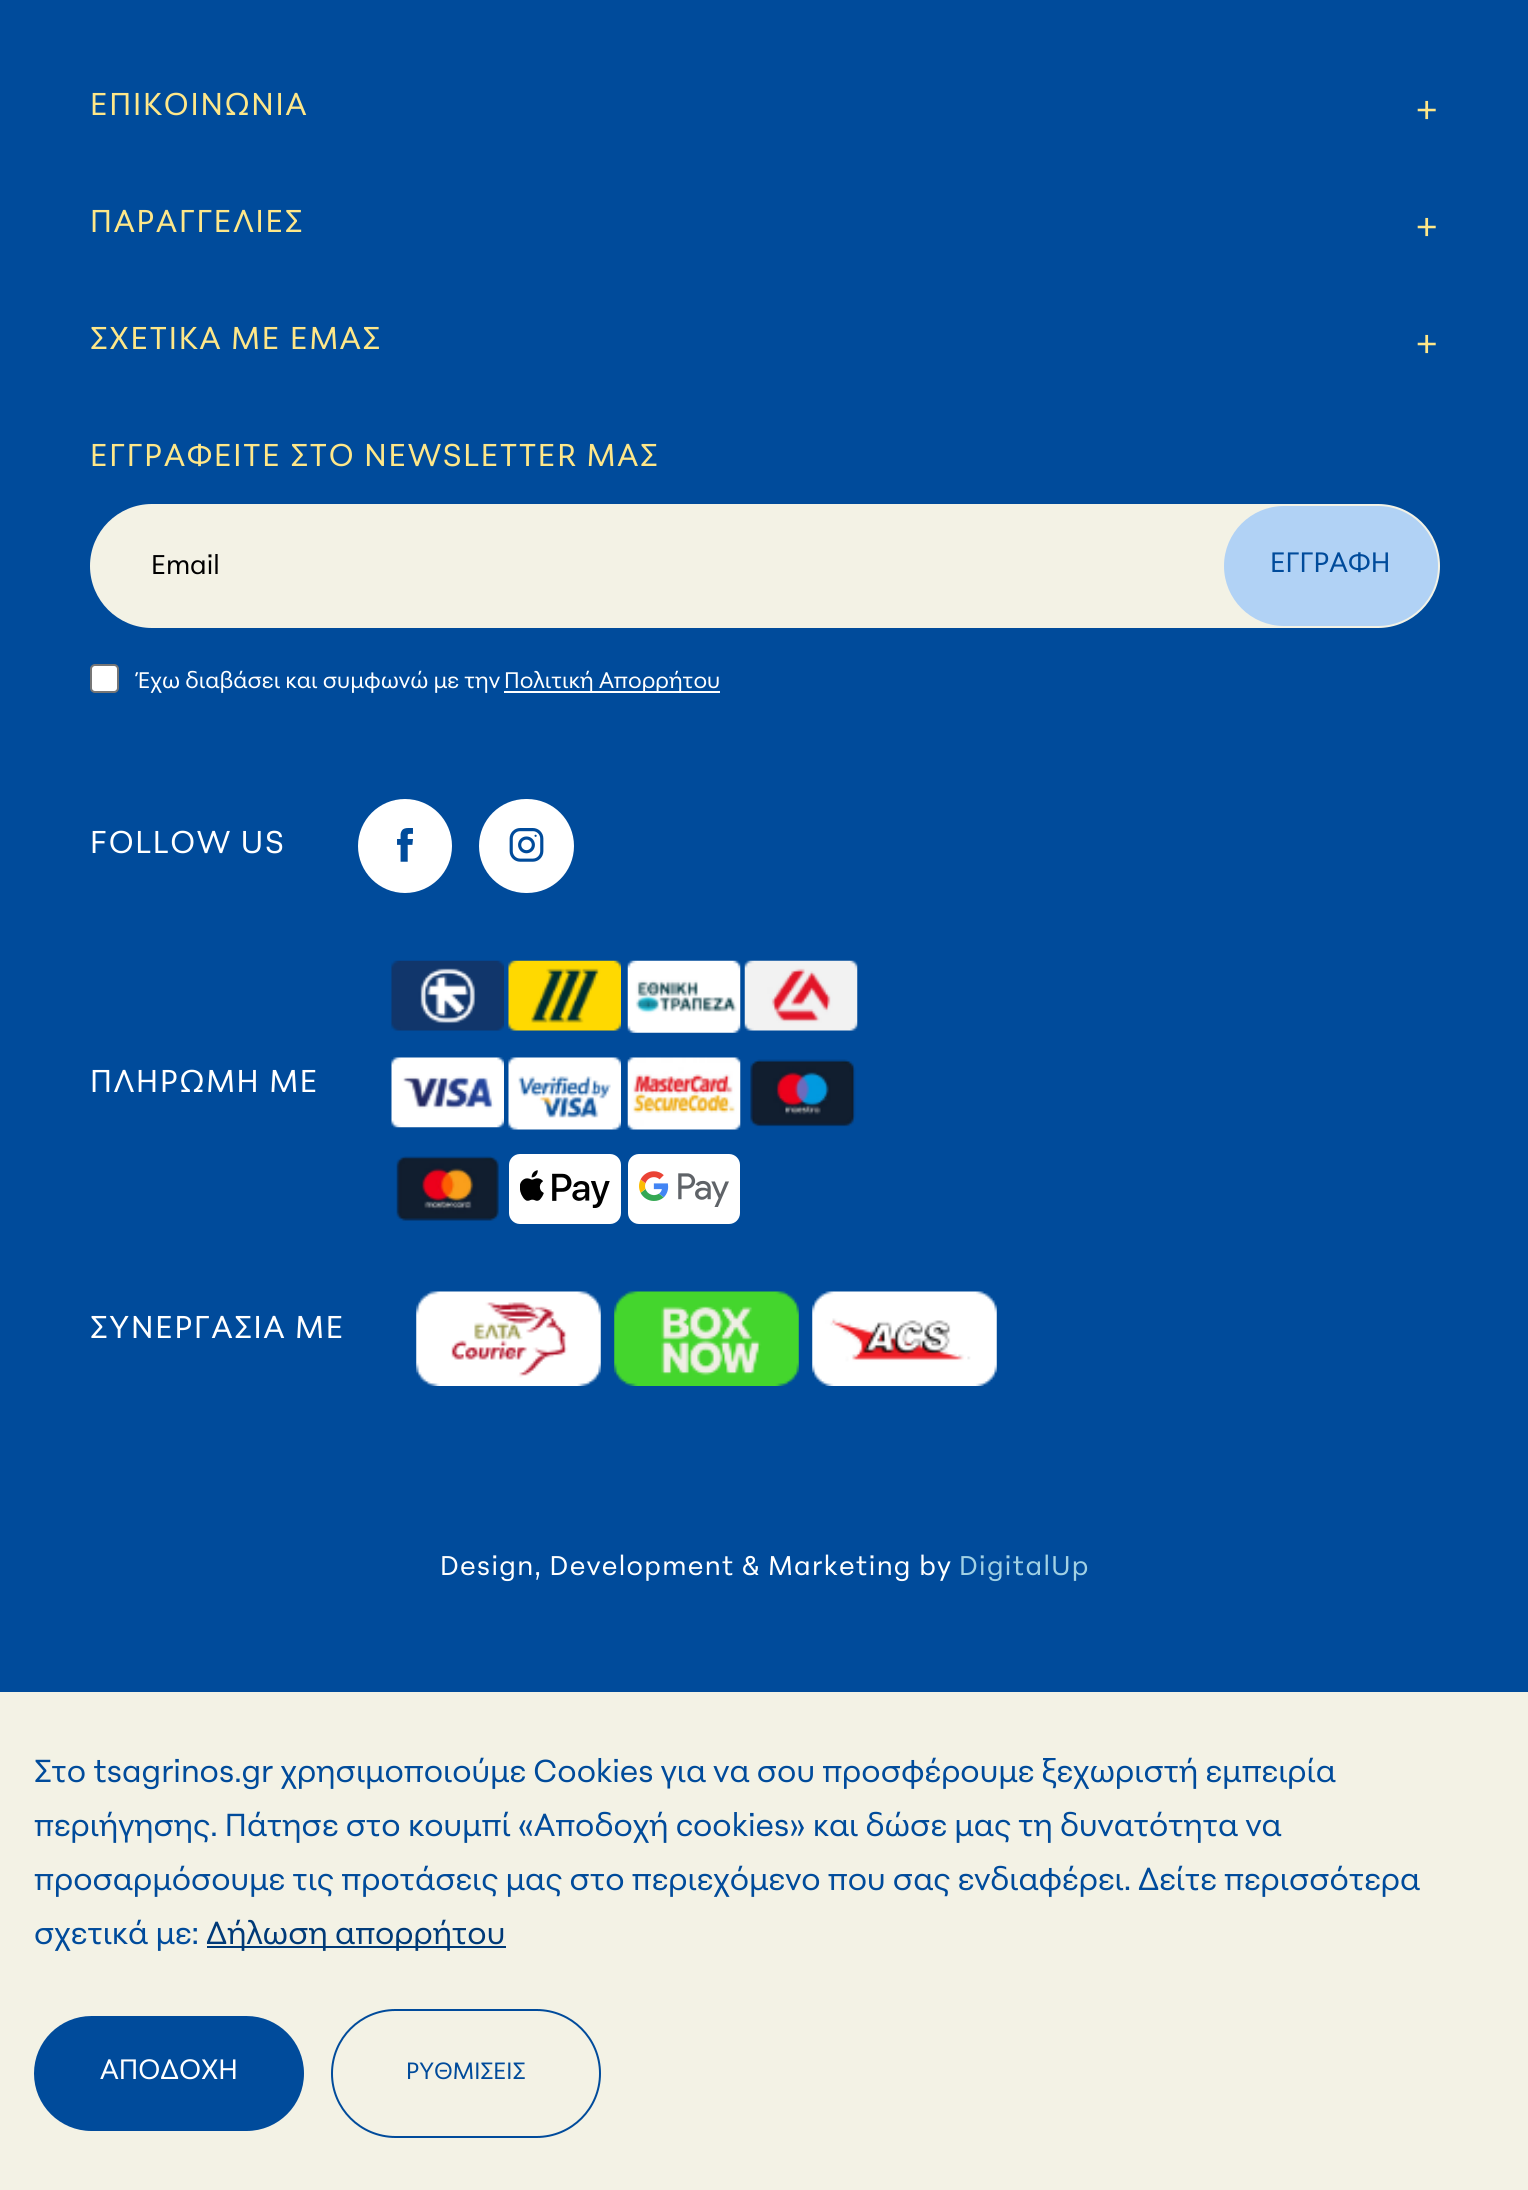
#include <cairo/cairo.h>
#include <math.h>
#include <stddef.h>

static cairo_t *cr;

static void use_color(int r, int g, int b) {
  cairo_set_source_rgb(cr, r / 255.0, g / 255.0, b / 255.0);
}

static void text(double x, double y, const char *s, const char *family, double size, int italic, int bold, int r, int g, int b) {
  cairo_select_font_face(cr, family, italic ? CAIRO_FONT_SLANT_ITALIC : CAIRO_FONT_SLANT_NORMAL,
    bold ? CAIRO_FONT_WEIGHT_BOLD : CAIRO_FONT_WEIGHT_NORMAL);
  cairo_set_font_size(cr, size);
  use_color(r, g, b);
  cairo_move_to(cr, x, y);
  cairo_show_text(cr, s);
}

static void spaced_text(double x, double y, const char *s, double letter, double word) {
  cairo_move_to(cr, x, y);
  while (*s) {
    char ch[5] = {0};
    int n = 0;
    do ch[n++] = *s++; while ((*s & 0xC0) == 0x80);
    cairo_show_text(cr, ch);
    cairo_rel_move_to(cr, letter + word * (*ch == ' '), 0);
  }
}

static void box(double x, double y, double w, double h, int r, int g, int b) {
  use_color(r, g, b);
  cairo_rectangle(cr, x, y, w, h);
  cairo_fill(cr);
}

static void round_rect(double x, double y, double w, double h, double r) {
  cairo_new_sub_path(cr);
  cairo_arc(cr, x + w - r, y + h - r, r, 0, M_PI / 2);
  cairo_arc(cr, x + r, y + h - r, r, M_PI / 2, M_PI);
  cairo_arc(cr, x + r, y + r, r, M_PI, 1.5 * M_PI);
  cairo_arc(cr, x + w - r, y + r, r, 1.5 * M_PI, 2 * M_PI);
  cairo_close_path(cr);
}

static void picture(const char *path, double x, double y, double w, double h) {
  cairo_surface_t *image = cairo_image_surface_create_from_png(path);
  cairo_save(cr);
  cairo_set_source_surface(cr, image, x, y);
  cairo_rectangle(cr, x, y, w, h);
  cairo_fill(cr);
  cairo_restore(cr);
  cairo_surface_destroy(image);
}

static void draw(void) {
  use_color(243, 242, 229);
  cairo_paint(cr);
  box(0, 0, 1528, 1692, 0, 75, 155);
  use_color(243, 242, 229);
  round_rect(90, 504, 1350, 124, 62);
  cairo_fill(cr);
  use_color(177, 210, 245);
  round_rect(1225, 507, 212, 118, 59);
  cairo_fill_preserve(cr);
  cairo_stroke(cr);
  use_color(255, 255, 255);
  round_rect(91, 665, 27, 27, 4);
  cairo_fill_preserve(cr);
  use_color(118, 118, 118);
  cairo_stroke(cr);
  box(504, 691, 216, 2, 255, 255, 255);
  cairo_arc(cr, 405, 846, 47, 0, 2 * M_PI);
  cairo_fill(cr);
  picture("img_01.png", 397, 828, 16, 34);
  round_rect(479, 799, 95, 94, 47);
  cairo_fill(cr);
  picture("img_02.png", 509, 828, 35, 34);
  picture("img_03.png", 391, 960, 113, 71);
  picture("img_04.png", 508, 960, 113, 71);
  picture("img_05.png", 627, 960, 114, 73);
  picture("img_06.png", 744, 960, 114, 71);
  picture("img_07.png", 391, 1057, 113, 71);
  picture("img_08.png", 508, 1057, 113, 73);
  picture("img_09.png", 627, 1057, 114, 73);
  picture("img_10.png", 750, 1059, 106, 68);
  picture("img_11.png", 396, 1156, 103, 65);
  round_rect(509, 1154, 112, 70, 11);
  cairo_fill(cr);
  picture("img_12.png", 520, 1170, 90, 38);
  round_rect(628, 1154, 112, 70, 11);
  cairo_fill(cr);
  picture("img_13.png", 639, 1171, 90, 36);
  picture("img_14.png", 416, 1291, 185, 95);
  picture("img_15.png", 614, 1291, 185, 95);
  picture("img_16.png", 812, 1291, 185, 95);
  box(207, 1946, 299, 2, 0, 58, 120);
  use_color(0, 75, 155);
  round_rect(34, 2016, 270, 115, 57.5);
  cairo_fill(cr);
  round_rect(332, 2010, 268, 127, 63.5);
  cairo_stroke(cr);
  cairo_select_font_face(cr, "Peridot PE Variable", CAIRO_FONT_SLANT_NORMAL, CAIRO_FONT_WEIGHT_NORMAL);
  cairo_set_font_size(cr, 31.5);
  use_color(254, 231, 137);
  spaced_text(90, 115, "ΕΠΙΚΟΙΝΩΝΙΑ", 1.8, 0);
  cairo_set_font_size(cr, 36);
  spaced_text(1415, 122, "+", 1.8, 0);
  cairo_set_font_size(cr, 31.5);
  spaced_text(90, 232, "ΠΑΡΑΓΓΕΛΙΕΣ", 1.8, 0);
  cairo_set_font_size(cr, 36);
  spaced_text(1415, 239, "+", 1.8, 0);
  cairo_set_font_size(cr, 31.5);
  spaced_text(90, 349, "ΣΧΕΤΙΚΑ ΜΕ ΕΜΑΣ", 1.8, 0);
  cairo_set_font_size(cr, 36);
  spaced_text(1415, 356, "+", 1.8, 0);
  cairo_set_font_size(cr, 31.5);
  spaced_text(90, 466, "ΕΓΓΡΑΦΕΙΤΕ ΣΤΟ NEWSLETTER ΜΑΣ", 1.8, 0);
  cairo_save(cr);
  cairo_rectangle(cr, 151, 554, 1039, 27);
  cairo_clip(cr);
  text(151, 574, "Email", "Peridot PE Variable", 27, 0, 0, 0, 0, 0);
  cairo_restore(cr);
  text(1270, 572, "ΕΓΓΡΑΦΗ", "Peridot PE Variable", 28, 0, 0, 0, 75, 155);
  text(136, 688, "Έχω διαβάσει και συμφωνώ με την", "Peridot PE Variable", 22.5, 0, 0, 255, 255, 255);
  text(504, 688, "Πολιτική Απορρήτου", "Peridot PE Variable", 22.5, 0, 0, 255, 255, 255);
  cairo_set_font_size(cr, 31.5);
  spaced_text(90, 853, "FOLLOW US", 1.8, 0);
  spaced_text(90, 1092, "ΠΛΗΡΩΜΗ ΜΕ", 1.8, 0);
  spaced_text(90, 1338, "ΣΥΝΕΡΓΑΣΙΑ ΜΕ", 1.8, 0);
  cairo_set_font_size(cr, 27);
  spaced_text(440, 1575, "Design, Development & Marketing by", 1.35, 0);
  use_color(161, 209, 228);
  spaced_text(959, 1575, "DigitalUp", 1.35, 0);
  text(34, 1782, "Στο tsagrinos.gr χρησιμοποιούμε Cookies για να σου προσφέρουμε ξεχωριστή εμπειρία", "Peridot PE Variable", 31.75, 0, 0, 0, 75, 155);
  text(34, 1836, "περιήγησης. Πάτησε στο κουμπί «Αποδοχή cookies» και δώσε μας τη δυνατότητα να", "Peridot PE Variable", 31.75, 0, 0, 0, 75, 155);
  text(34, 1890, "προσαρμόσουμε τις προτάσεις μας στο περιεχόμενο που σας ενδιαφέρει.", "Peridot PE Variable", 31.75, 0, 0, 0, 75, 155);
  text(1138, 1890, "Δείτε περισσότερα", "Peridot PE Variable", 31.75, 0, 0, 0, 75, 155);
  text(34, 1944, "σχετικά με:", "Peridot PE Variable", 31.75, 0, 0, 0, 75, 155);
  text(206, 1944, "Δήλωση απορρήτου", "Peridot PE Variable", 31.75, 0, 0, 0, 58, 120);
  text(100, 2079, "ΑΠΟΔΟΧΗ", "Peridot PE Variable", 28, 0, 0, 255, 255, 255);
  text(406, 2079, "ΡΥΘΜΙΣΕΙΣ", "Peridot PE Variable", 23.5, 0, 0, 0, 75, 155);
}

int main(void) {
  cairo_surface_t *surface = cairo_image_surface_create(CAIRO_FORMAT_RGB24, 1528, 2190);
  cr = cairo_create(surface);
  cairo_font_options_t *options = cairo_font_options_create();
  cairo_font_options_set_hint_metrics(options, CAIRO_HINT_METRICS_OFF);
  cairo_font_options_set_hint_style(options, CAIRO_HINT_STYLE_NONE);
  cairo_set_font_options(cr, options);
  cairo_set_miter_limit(cr, 4);
  draw();
  cairo_surface_write_to_png(surface, "out.png");
  cairo_font_options_destroy(options);
  cairo_destroy(cr);
  cairo_surface_destroy(surface);
  return 0;
}
